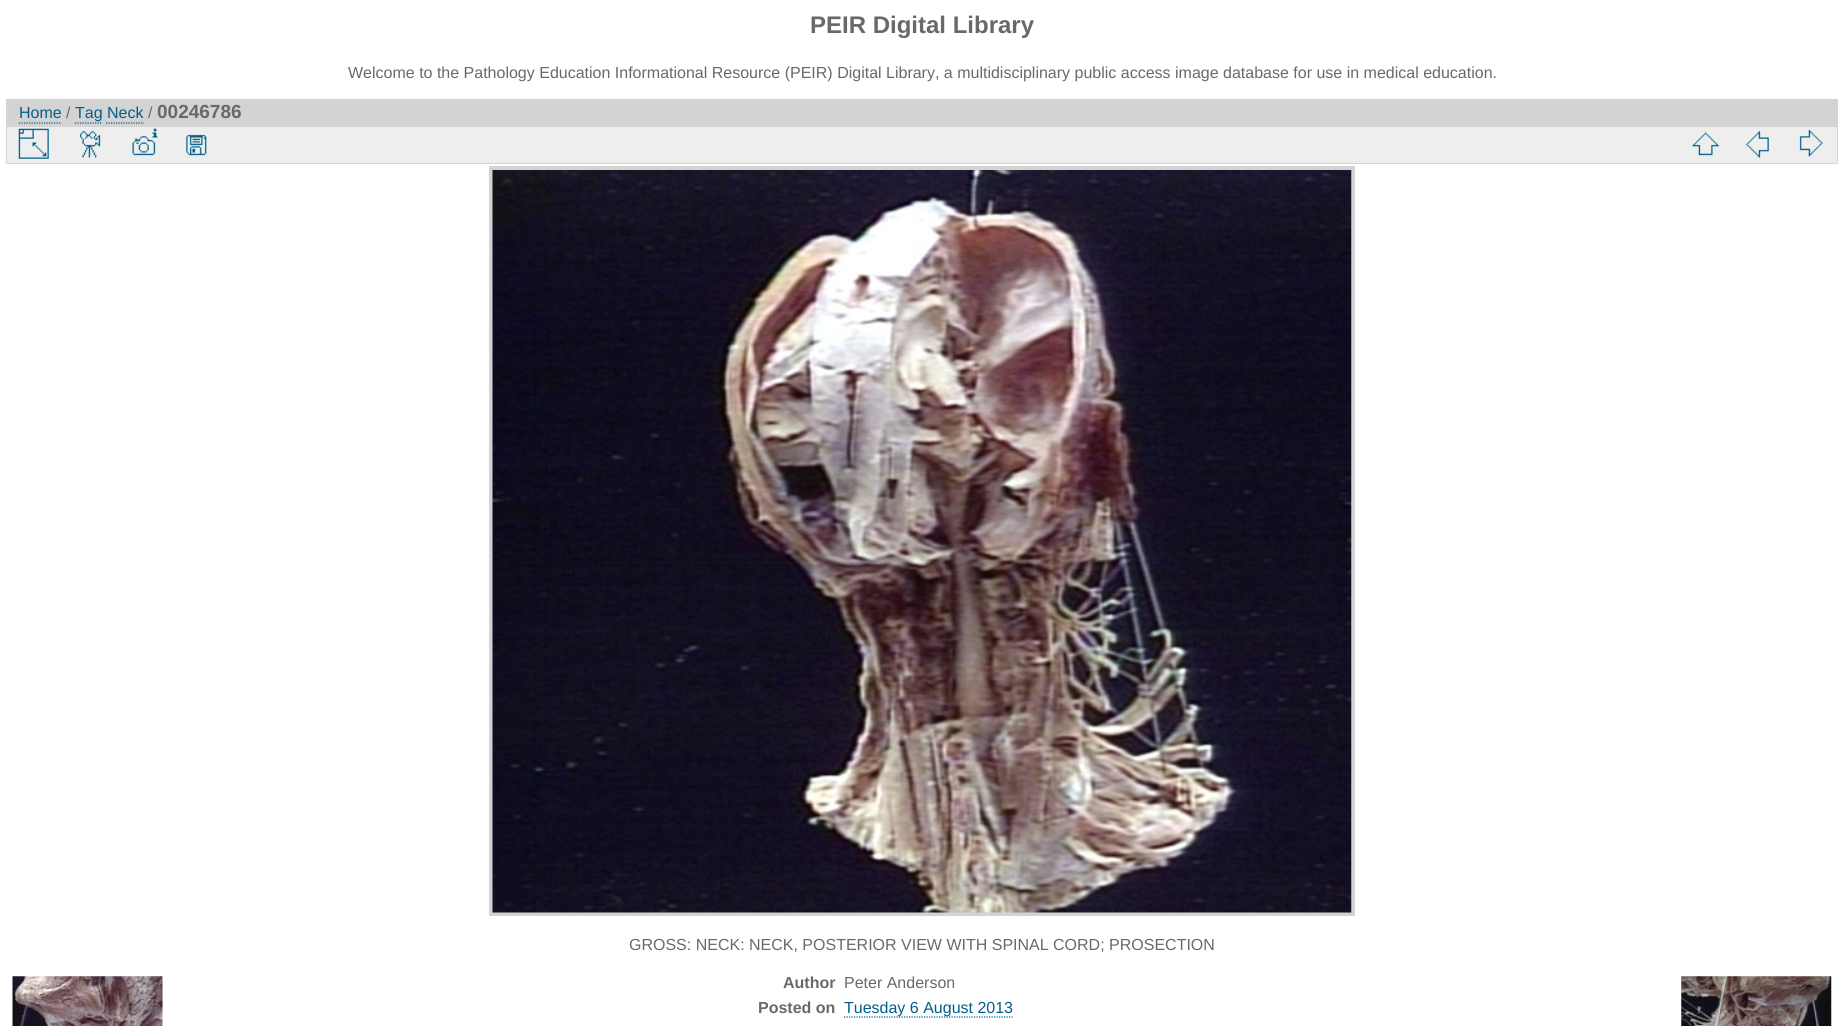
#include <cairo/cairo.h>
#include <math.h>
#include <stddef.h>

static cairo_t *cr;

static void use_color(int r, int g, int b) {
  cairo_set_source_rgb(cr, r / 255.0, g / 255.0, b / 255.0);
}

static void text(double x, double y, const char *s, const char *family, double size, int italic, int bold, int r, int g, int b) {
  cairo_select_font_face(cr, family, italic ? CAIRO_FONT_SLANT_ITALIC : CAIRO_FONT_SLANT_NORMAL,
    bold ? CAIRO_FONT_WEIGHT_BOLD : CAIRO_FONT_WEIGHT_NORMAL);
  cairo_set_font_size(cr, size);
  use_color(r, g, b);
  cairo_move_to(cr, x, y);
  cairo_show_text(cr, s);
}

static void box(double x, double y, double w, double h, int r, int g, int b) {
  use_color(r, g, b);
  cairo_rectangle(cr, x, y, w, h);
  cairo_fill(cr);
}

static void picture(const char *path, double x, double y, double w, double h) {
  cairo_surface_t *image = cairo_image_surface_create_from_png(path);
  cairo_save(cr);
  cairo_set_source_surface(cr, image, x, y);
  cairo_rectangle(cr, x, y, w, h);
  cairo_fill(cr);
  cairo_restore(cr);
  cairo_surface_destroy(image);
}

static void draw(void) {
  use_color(255, 255, 255);
  cairo_paint(cr);
  box(6, 99, 1832, 27, 211, 211, 211);
  cairo_new_path(cr);
  cairo_move_to(cr, 19, 123);
  cairo_line_to(cr, 61, 123);
  use_color(0, 94, 137);
  cairo_set_line_width(cr, 1.2);
  cairo_set_dash(cr, (double[]){1.25, 1.25}, 2, 0);
  cairo_stroke(cr);
  cairo_new_path(cr);
  cairo_move_to(cr, 75, 123);
  cairo_line_to(cr, 102.5, 123);
  cairo_stroke(cr);
  cairo_new_path(cr);
  cairo_move_to(cr, 106, 123);
  cairo_line_to(cr, 144, 123);
  cairo_stroke(cr);
  use_color(238, 238, 238);
  cairo_rectangle(cr, 6.5, 126.5, 1831, 37);
  cairo_fill_preserve(cr);
  use_color(211, 211, 211);
  cairo_set_line_width(cr, 1);
  cairo_set_dash(cr, NULL, 0, 0);
  cairo_stroke(cr);
  picture("img_01.png", 18, 128, 31, 31);
  picture("img_02.png", 79, 131, 22, 27);
  picture("img_03.png", 132, 128, 26, 28);
  picture("img_04.png", 186, 134, 21, 22);
  picture("img_05.png", 1692, 132, 27, 24);
  picture("img_06.png", 1746, 131, 23, 27);
  picture("img_07.png", 1799, 129, 24, 28);
  cairo_rectangle(cr, 491, 168, 862, 746);
  cairo_set_line_width(cr, 4);
  cairo_stroke(cr);
  picture("img_08.png", 492, 170, 860, 743);
  picture("img_09.png", 12, 976, 151, 50);
  picture("img_10.png", 1681, 976, 151, 50);
  cairo_new_path(cr);
  cairo_move_to(cr, 844, 1017);
  cairo_line_to(cr, 1012.5, 1017);
  use_color(0, 94, 137);
  cairo_set_line_width(cr, 1.2);
  cairo_set_dash(cr, (double[]){1.25, 1.25}, 2, 0);
  cairo_stroke(cr);
  text(810, 33, "PEIR Digital Library", "Liberation Sans", 24, 0, 1, 105, 105, 105);
  text(348, 78, "Welcome to the Pathology Education Informational Resource (PEIR) Digital Library, a multidisciplinary public access image database for use in medical education.", "Liberation Sans", 16, 0, 0, 105, 105, 105);
  text(19, 118, "Home", "Liberation Sans", 16, 0, 0, 0, 94, 137);
  text(66, 118, "/", "Liberation Sans", 16, 0, 0, 105, 105, 105);
  text(75, 118, "Tag Neck", "Liberation Sans", 16, 0, 0, 0, 94, 137);
  text(148, 118, "/", "Liberation Sans", 16, 0, 0, 105, 105, 105);
  text(157, 118, "00246786", "Liberation Sans", 19, 0, 1, 105, 105, 105);
  text(629, 950, "GROSS: NECK: NECK, POSTERIOR VIEW WITH SPINAL CORD; PROSECTION", "Liberation Sans", 16, 0, 0, 105, 105, 105);
  text(783, 988, "Author", "Liberation Sans", 16, 0, 1, 105, 105, 105);
  text(844, 988, "Peter Anderson", "Liberation Sans", 16, 0, 0, 105, 105, 105);
  text(758, 1013, "Posted on", "Liberation Sans", 16, 0, 1, 105, 105, 105);
  text(844, 1013, "Tuesday 6 August 2013", "Liberation Sans", 16, 0, 0, 0, 94, 137);
}

int main(void) {
  cairo_surface_t *surface = cairo_image_surface_create(CAIRO_FORMAT_RGB24, 1843, 1026);
  cr = cairo_create(surface);
  cairo_font_options_t *options = cairo_font_options_create();
  cairo_font_options_set_hint_metrics(options, CAIRO_HINT_METRICS_OFF);
  cairo_font_options_set_hint_style(options, CAIRO_HINT_STYLE_NONE);
  cairo_set_font_options(cr, options);
  cairo_set_miter_limit(cr, 4);
  draw();
  cairo_surface_write_to_png(surface, "out.png");
  cairo_font_options_destroy(options);
  cairo_destroy(cr);
  cairo_surface_destroy(surface);
  return 0;
}
